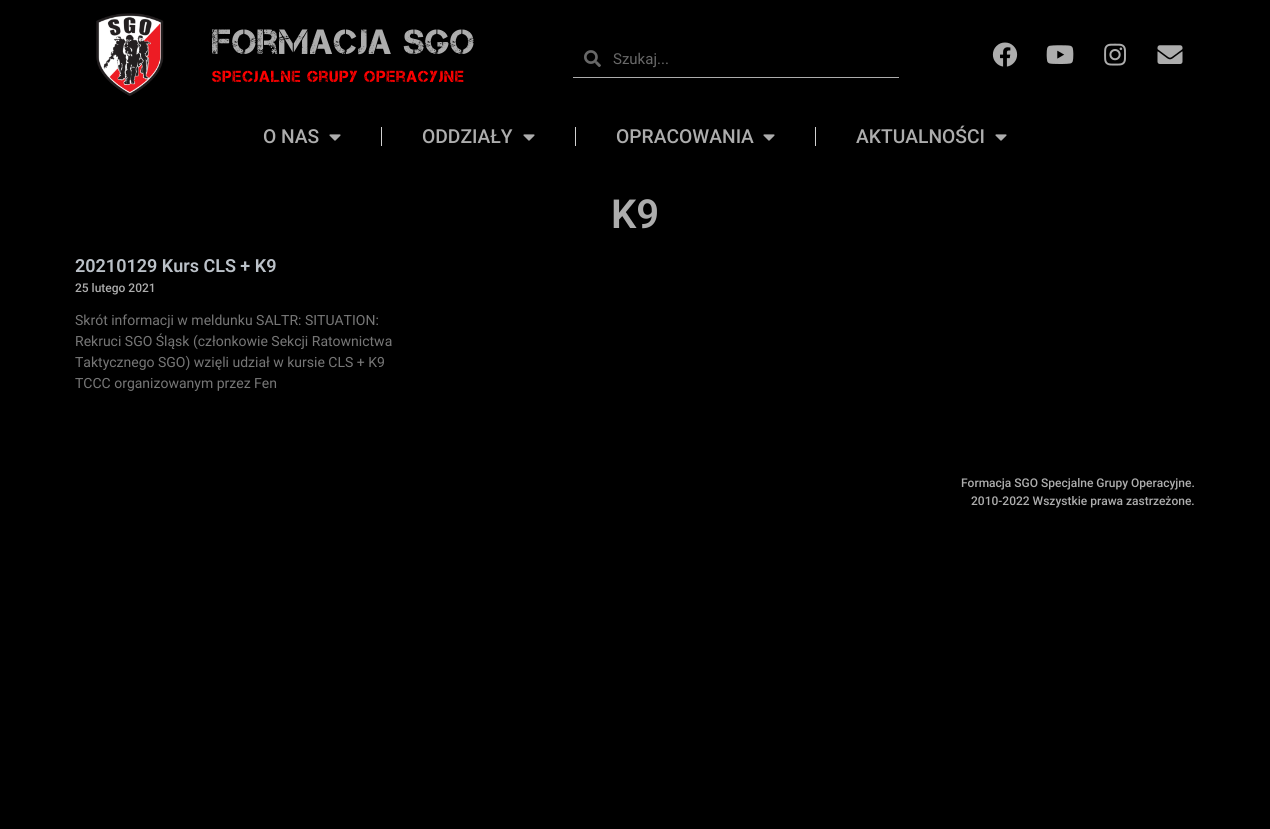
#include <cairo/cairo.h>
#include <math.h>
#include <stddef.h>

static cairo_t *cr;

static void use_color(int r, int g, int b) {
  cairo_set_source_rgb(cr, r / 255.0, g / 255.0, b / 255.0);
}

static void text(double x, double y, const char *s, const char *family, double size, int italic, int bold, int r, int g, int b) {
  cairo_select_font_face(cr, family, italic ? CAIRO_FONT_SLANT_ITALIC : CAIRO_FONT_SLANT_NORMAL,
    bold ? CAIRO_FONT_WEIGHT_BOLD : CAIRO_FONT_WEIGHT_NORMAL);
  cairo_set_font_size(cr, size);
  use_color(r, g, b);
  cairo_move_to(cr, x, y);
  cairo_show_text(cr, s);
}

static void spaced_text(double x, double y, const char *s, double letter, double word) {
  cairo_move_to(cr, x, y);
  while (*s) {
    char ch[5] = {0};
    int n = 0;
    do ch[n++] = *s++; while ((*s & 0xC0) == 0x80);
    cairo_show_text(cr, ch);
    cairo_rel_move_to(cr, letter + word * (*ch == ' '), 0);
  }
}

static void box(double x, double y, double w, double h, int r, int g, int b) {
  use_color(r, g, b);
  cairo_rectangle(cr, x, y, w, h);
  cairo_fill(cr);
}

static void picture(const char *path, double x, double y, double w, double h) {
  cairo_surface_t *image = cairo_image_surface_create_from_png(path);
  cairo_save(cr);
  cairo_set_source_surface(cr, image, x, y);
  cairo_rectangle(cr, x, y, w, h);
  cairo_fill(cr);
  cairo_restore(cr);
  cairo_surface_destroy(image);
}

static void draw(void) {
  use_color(0, 0, 0);
  cairo_paint(cr);
  picture("img_01.png", 96, 13, 68, 83);
  box(573, 77, 326, 1, 173, 173, 173);
  picture("img_02.png", 584, 50, 17, 17);
  picture("img_03.png", 992, 42, 26, 25);
  picture("img_04.png", 1046, 45, 28, 19);
  picture("img_05.png", 1104, 43, 22, 23);
  picture("img_06.png", 1157, 45, 26, 19);
  picture("img_07.png", 329, 134, 12, 7);
  box(381, 127, 1, 19, 209, 209, 209);
  picture("img_07.png", 523, 134, 12, 7);
  box(575, 127, 1, 19, 209, 209, 209);
  picture("img_07.png", 763, 134, 12, 7);
  box(815, 127, 1, 19, 209, 209, 209);
  picture("img_07.png", 995, 134, 12, 7);
  cairo_select_font_face(cr, "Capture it", CAIRO_FONT_SLANT_NORMAL, CAIRO_FONT_WEIGHT_NORMAL);
  cairo_set_font_size(cr, 35);
  use_color(173, 173, 173);
  spaced_text(212, 54, "Formacja SGO", 1, 0);
  cairo_set_font_size(cr, 16);
  use_color(255, 0, 0);
  spaced_text(212, 82, "Specjalne grupy operacyjne", 1, 0);
  text(613, 64, "Szukaj...", "Roboto", 15, 0, 0, 104, 104, 104);
  text(263, 143, "O NAS", "Roboto Medium", 19.25, 0, 0, 173, 173, 173);
  text(422, 143, "ODDZIAŁY", "Roboto Medium", 19.25, 0, 0, 173, 173, 173);
  text(616, 143, "OPRACOWANIA", "Roboto Medium", 19.25, 0, 0, 173, 173, 173);
  text(856, 143, "AKTUALNOŚCI", "Roboto Medium", 19.25, 0, 0, 173, 173, 173);
  text(611, 228, "K9", "Roboto SemiBold", 40, 0, 0, 173, 173, 173);
  text(75, 272, "20210129 Kurs CLS + K9", "Roboto SemiBold", 18, 0, 0, 187, 193, 200);
  text(75, 292, "25 lutego 2021", "Roboto Medium", 12, 0, 0, 173, 173, 173);
  text(75, 325, "Skrót informacji w meldunku SALTR: SITUATION:", "Roboto", 14, 0, 0, 119, 119, 119);
  text(75, 346, "Rekruci SGO Śląsk (członkowie Sekcji Ratownictwa", "Roboto", 14, 0, 0, 119, 119, 119);
  text(75, 367, "Taktycznego SGO) wzięli udział w kursie CLS + K9", "Roboto", 14, 0, 0, 119, 119, 119);
  text(75, 388, "TCCC organizowanym przez Fen", "Roboto", 14, 0, 0, 119, 119, 119);
  text(961, 487, "Formacja SGO Specjalne Grupy Operacyjne.", "Roboto Medium", 12, 0, 0, 173, 173, 173);
  text(971, 505, "2010-2022 Wszystkie prawa zastrzeżone.", "Roboto Medium", 12, 0, 0, 173, 173, 173);
}

int main(void) {
  cairo_surface_t *surface = cairo_image_surface_create(CAIRO_FORMAT_RGB24, 1270, 829);
  cr = cairo_create(surface);
  cairo_font_options_t *options = cairo_font_options_create();
  cairo_font_options_set_hint_metrics(options, CAIRO_HINT_METRICS_OFF);
  cairo_font_options_set_hint_style(options, CAIRO_HINT_STYLE_NONE);
  cairo_set_font_options(cr, options);
  cairo_set_miter_limit(cr, 4);
  draw();
  cairo_surface_write_to_png(surface, "out.png");
  cairo_font_options_destroy(options);
  cairo_destroy(cr);
  cairo_surface_destroy(surface);
  return 0;
}
